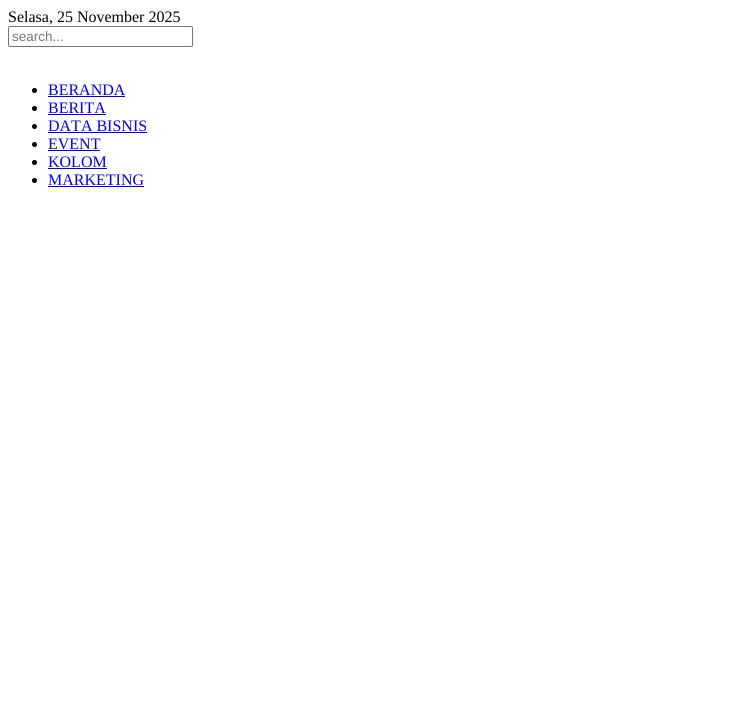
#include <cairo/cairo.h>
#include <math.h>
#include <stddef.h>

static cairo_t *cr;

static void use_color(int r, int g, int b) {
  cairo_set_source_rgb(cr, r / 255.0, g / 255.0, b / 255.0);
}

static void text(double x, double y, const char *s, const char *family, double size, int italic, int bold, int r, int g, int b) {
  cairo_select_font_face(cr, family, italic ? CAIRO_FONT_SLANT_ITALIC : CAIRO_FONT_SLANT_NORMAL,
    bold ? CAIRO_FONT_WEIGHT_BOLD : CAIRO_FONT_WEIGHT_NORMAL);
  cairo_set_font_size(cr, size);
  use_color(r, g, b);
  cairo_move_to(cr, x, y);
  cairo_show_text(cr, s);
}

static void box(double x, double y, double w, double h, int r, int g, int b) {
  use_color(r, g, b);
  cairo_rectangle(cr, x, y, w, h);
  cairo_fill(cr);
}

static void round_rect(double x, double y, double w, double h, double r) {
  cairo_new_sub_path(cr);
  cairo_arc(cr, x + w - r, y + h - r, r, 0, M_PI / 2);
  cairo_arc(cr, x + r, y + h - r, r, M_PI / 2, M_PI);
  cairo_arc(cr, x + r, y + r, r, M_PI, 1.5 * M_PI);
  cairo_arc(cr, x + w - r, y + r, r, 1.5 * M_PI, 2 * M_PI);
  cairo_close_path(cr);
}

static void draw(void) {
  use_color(255, 255, 255);
  cairo_paint(cr);
  round_rect(8.5, 26.5, 184, 20, 1.5);
  use_color(118, 118, 118);
  cairo_set_line_width(cr, 1);
  cairo_stroke(cr);
  use_color(0, 0, 0);
  cairo_arc(cr, 34.5, 90.5, 2.5, 0, 2 * M_PI);
  cairo_fill(cr);
  box(48, 96, 77, 1, 0, 0, 238);
  use_color(0, 0, 0);
  cairo_arc(cr, 34.5, 108.5, 2.5, 0, 2 * M_PI);
  cairo_fill(cr);
  box(48, 114, 58, 1, 0, 0, 238);
  use_color(0, 0, 0);
  cairo_arc(cr, 34.5, 126.5, 2.5, 0, 2 * M_PI);
  cairo_fill(cr);
  box(48, 132, 99, 1, 0, 0, 238);
  use_color(0, 0, 0);
  cairo_arc(cr, 34.5, 144.5, 2.5, 0, 2 * M_PI);
  cairo_fill(cr);
  box(48, 150, 52, 1, 0, 0, 238);
  use_color(0, 0, 0);
  cairo_arc(cr, 34.5, 162.5, 2.5, 0, 2 * M_PI);
  cairo_fill(cr);
  box(48, 168, 59, 1, 0, 0, 238);
  use_color(0, 0, 0);
  cairo_arc(cr, 34.5, 180.5, 2.5, 0, 2 * M_PI);
  cairo_fill(cr);
  box(48, 186, 96, 1, 0, 0, 238);
  text(8, 22, "Selasa, 25 November 2025", "Liberation Serif", 16, 0, 0, 0, 0, 0);
  text(12, 41, "search...", "Liberation Sans", 13.5, 0, 0, 117, 117, 117);
  text(48, 95, "BERANDA", "Liberation Serif", 16, 0, 0, 0, 0, 238);
  text(48, 113, "BERITA", "Liberation Serif", 16, 0, 0, 0, 0, 238);
  text(48, 131, "DATA BISNIS", "Liberation Serif", 16, 0, 0, 0, 0, 238);
  text(48, 149, "EVENT", "Liberation Serif", 16, 0, 0, 0, 0, 238);
  text(48, 167, "KOLOM", "Liberation Serif", 16, 0, 0, 0, 0, 238);
  text(48, 185, "MARKETING", "Liberation Serif", 16, 0, 0, 0, 0, 238);
}

int main(void) {
  cairo_surface_t *surface = cairo_image_surface_create(CAIRO_FORMAT_RGB24, 743, 704);
  cr = cairo_create(surface);
  cairo_font_options_t *options = cairo_font_options_create();
  cairo_font_options_set_hint_metrics(options, CAIRO_HINT_METRICS_OFF);
  cairo_font_options_set_hint_style(options, CAIRO_HINT_STYLE_NONE);
  cairo_set_font_options(cr, options);
  cairo_set_miter_limit(cr, 4);
  draw();
  cairo_surface_write_to_png(surface, "out.png");
  cairo_font_options_destroy(options);
  cairo_destroy(cr);
  cairo_surface_destroy(surface);
  return 0;
}
